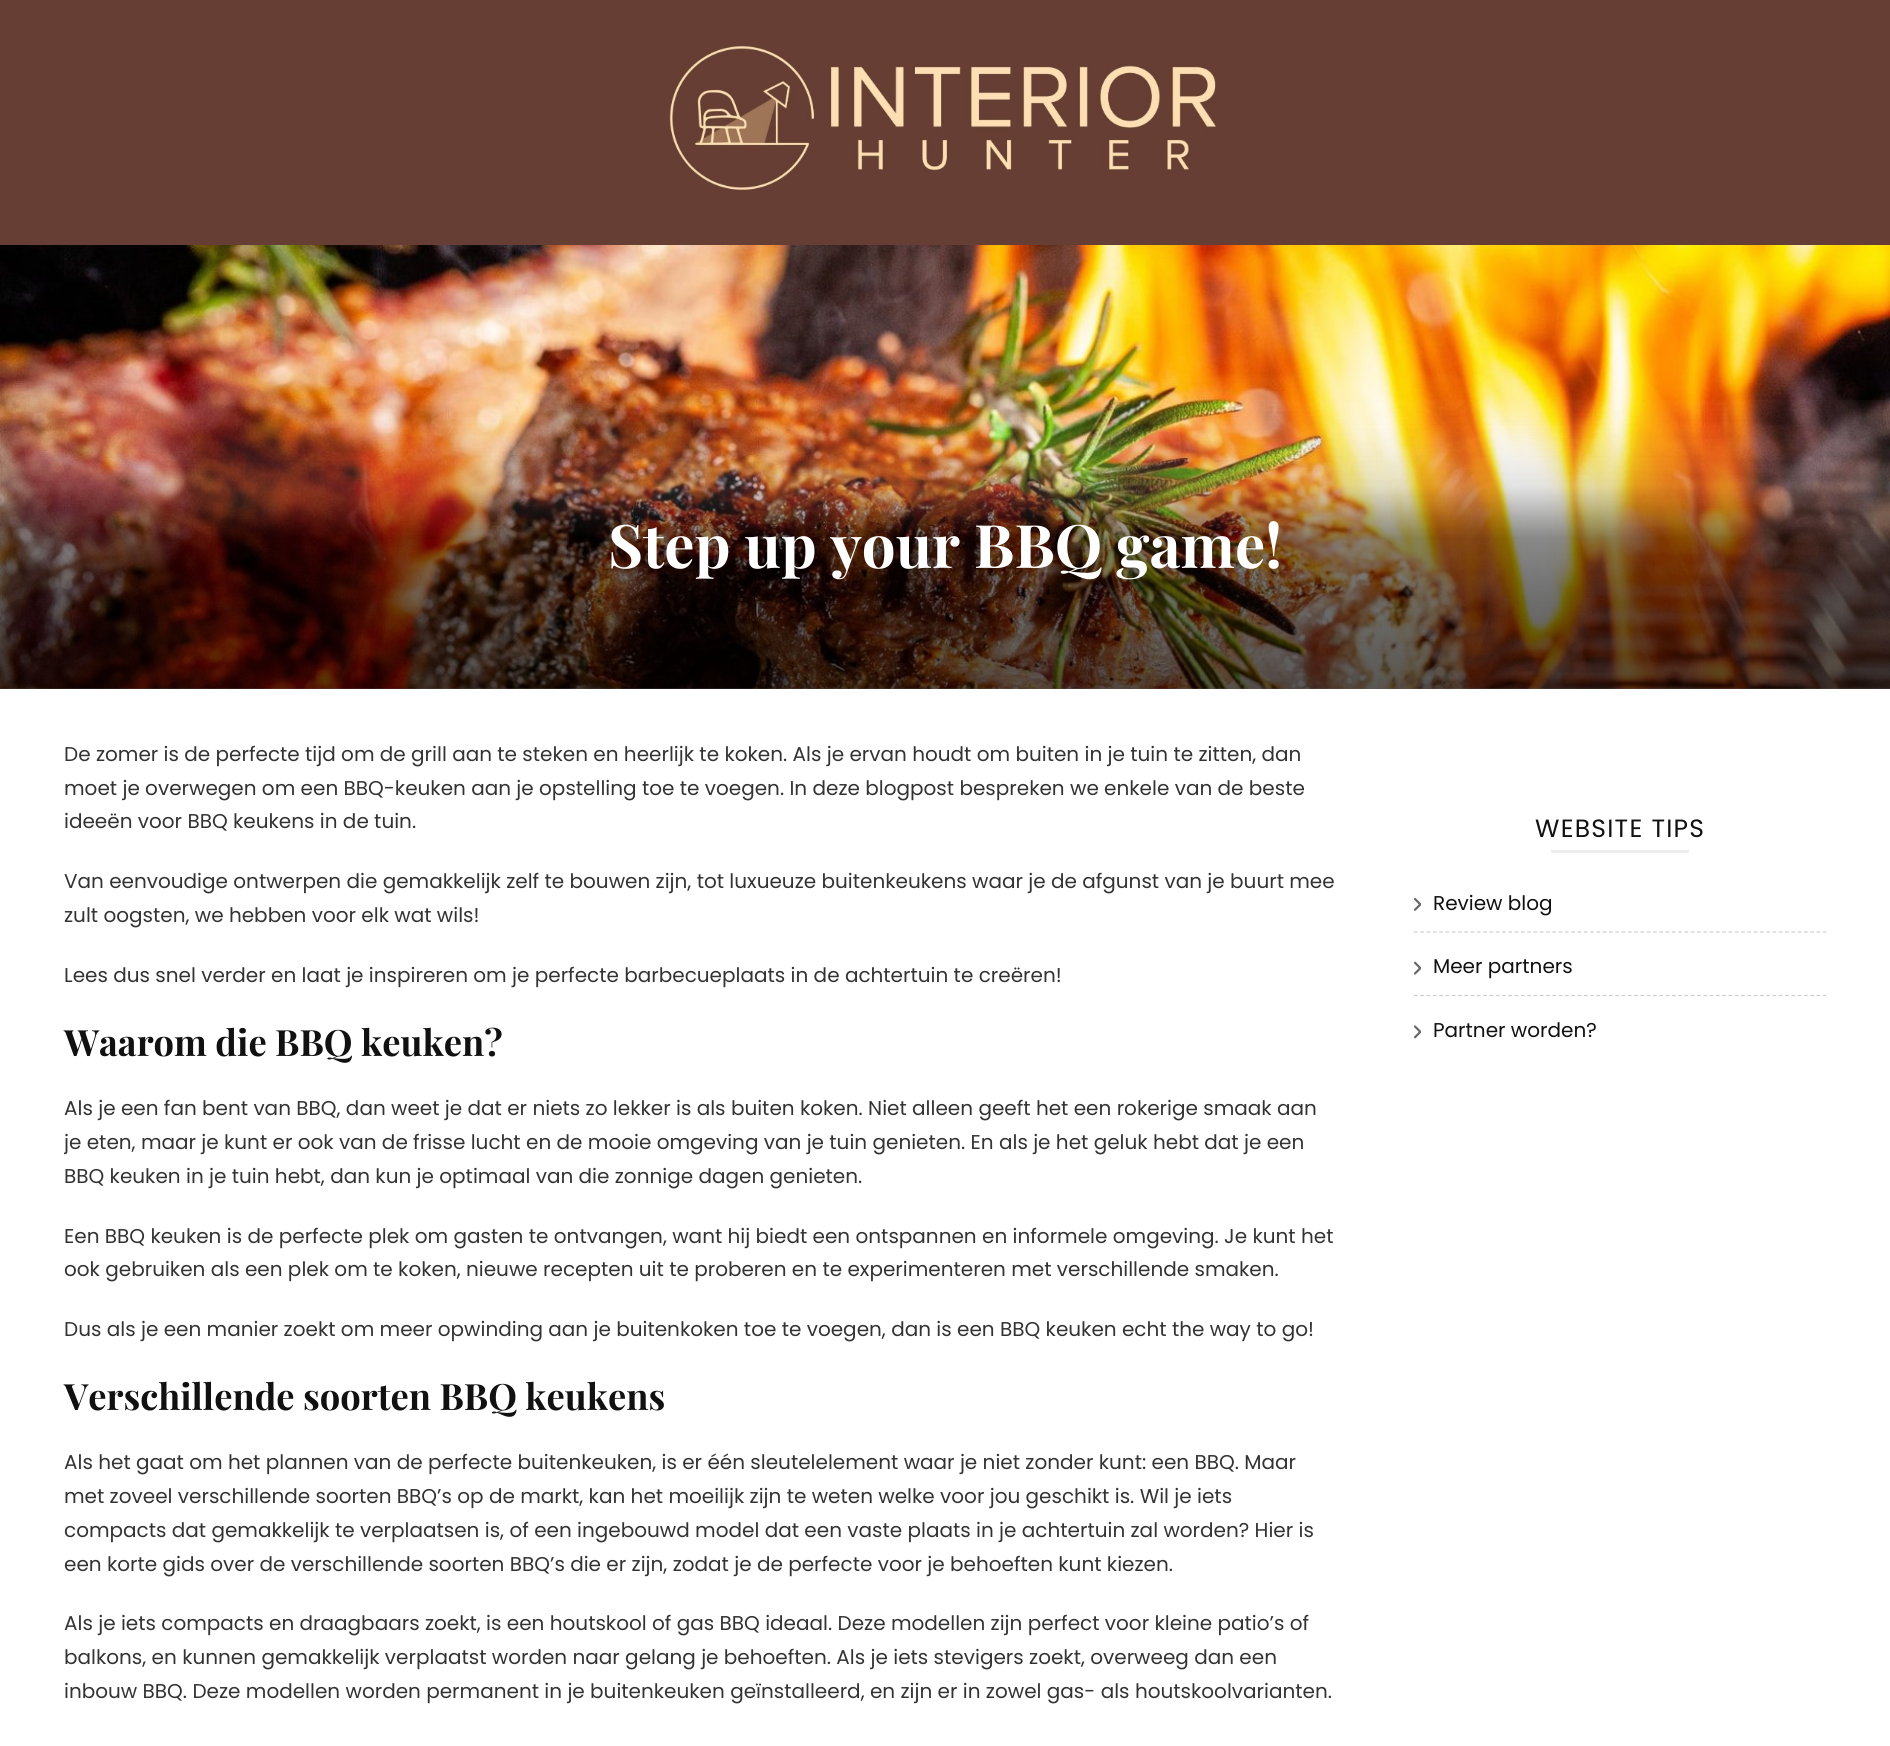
#include <cairo/cairo.h>
#include <math.h>
#include <stddef.h>

static cairo_t *cr;

static void use_color(int r, int g, int b) {
  cairo_set_source_rgb(cr, r / 255.0, g / 255.0, b / 255.0);
}

static void text(double x, double y, const char *s, const char *family, double size, int italic, int bold, int r, int g, int b) {
  cairo_select_font_face(cr, family, italic ? CAIRO_FONT_SLANT_ITALIC : CAIRO_FONT_SLANT_NORMAL,
    bold ? CAIRO_FONT_WEIGHT_BOLD : CAIRO_FONT_WEIGHT_NORMAL);
  cairo_set_font_size(cr, size);
  use_color(r, g, b);
  cairo_move_to(cr, x, y);
  cairo_show_text(cr, s);
}

static void spaced_text(double x, double y, const char *s, double letter, double word) {
  cairo_move_to(cr, x, y);
  while (*s) {
    char ch[5] = {0};
    int n = 0;
    do ch[n++] = *s++; while ((*s & 0xC0) == 0x80);
    cairo_show_text(cr, ch);
    cairo_rel_move_to(cr, letter + word * (*ch == ' '), 0);
  }
}

static void box(double x, double y, double w, double h, int r, int g, int b) {
  use_color(r, g, b);
  cairo_rectangle(cr, x, y, w, h);
  cairo_fill(cr);
}

static void picture(const char *path, double x, double y, double w, double h) {
  cairo_surface_t *image = cairo_image_surface_create_from_png(path);
  cairo_save(cr);
  cairo_set_source_surface(cr, image, x, y);
  cairo_rectangle(cr, x, y, w, h);
  cairo_fill(cr);
  cairo_restore(cr);
  cairo_surface_destroy(image);
}

static void draw(void) {
  cairo_pattern_t *gradient;
  use_color(255, 255, 255);
  cairo_paint(cr);
  box(0, 0, 1890, 245, 102, 62, 52);
  picture("img_01.png", 669, 45, 548, 147);
  picture("img_02.png", 0, 245, 1890, 444);
  gradient = cairo_pattern_create_linear(945, 387, 945, 689);
  cairo_pattern_add_color_stop_rgba(gradient, 0, 0.941, 0.941, 0.941, 0);
  cairo_pattern_add_color_stop_rgba(gradient, 0.06, 0.941, 0.941, 0.941, 0.03);
  cairo_pattern_add_color_stop_rgba(gradient, 0.13, 0.843, 0.843, 0.843, 0.06);
  cairo_pattern_add_color_stop_rgba(gradient, 0.14, 0.827, 0.827, 0.827, 0.07);
  cairo_pattern_add_color_stop_rgba(gradient, 0.25, 0.639, 0.639, 0.639, 0.15);
  cairo_pattern_add_color_stop_rgba(gradient, 0.3, 0.553, 0.553, 0.553, 0.19);
  cairo_pattern_add_color_stop_rgba(gradient, 0.33, 0.502, 0.502, 0.502, 0.22);
  cairo_pattern_add_color_stop_rgba(gradient, 0.36, 0.365, 0.365, 0.365, 0.27);
  cairo_pattern_add_color_stop_rgba(gradient, 0.41, 0.196, 0.196, 0.196, 0.34);
  cairo_pattern_add_color_stop_rgba(gradient, 0.43, 0.137, 0.137, 0.137, 0.37);
  cairo_pattern_add_color_stop_rgba(gradient, 0.44, 0.11, 0.11, 0.11, 0.38);
  cairo_pattern_add_color_stop_rgba(gradient, 0.47, 0.047, 0.047, 0.047, 0.42);
  cairo_pattern_add_color_stop_rgba(gradient, 0.5, 0, 0, 0, 0.46);
  cairo_pattern_add_color_stop_rgba(gradient, 0.71, 0, 0, 0, 0.57);
  cairo_pattern_add_color_stop_rgba(gradient, 1, 0, 0, 0, 0.65);
  cairo_set_source(cr, gradient);
  cairo_pattern_destroy(gradient);
  cairo_rectangle(cr, 0, 400, 1890, 289);
  cairo_fill(cr);
  box(1551, 850, 138, 3, 238, 238, 238);
  cairo_new_path(cr);
  cairo_move_to(cr, 1414, 932);
  cairo_line_to(cr, 1826, 932);
  use_color(206, 206, 206);
  cairo_set_line_width(cr, 1.2);
  cairo_set_dash(cr, (double[]){3.75, 2.54}, 2, 0);
  cairo_stroke(cr);
  picture("img_03.png", 1414, 897, 7, 14);
  cairo_new_path(cr);
  cairo_move_to(cr, 1414, 995.5);
  cairo_line_to(cr, 1826, 995.5);
  cairo_stroke(cr);
  picture("img_04.png", 1414, 961, 7, 14);
  picture("img_05.png", 1414, 1025, 7, 14);
  text(608, 568, "Step up your BBQ game!", "Playfair Display", 60, 0, 1, 255, 255, 255);
  text(64, 761, "De zomer is de perfecte tijd om de grill aan te steken en heerlijk te koken. Als je ervan houdt om buiten in je tuin te zitten, dan", "Poppins", 20, 0, 0, 51, 51, 51);
  text(64, 795, "moet je overwegen om een BBQ-keuken aan je opstelling toe te voegen. In deze blogpost bespreken we enkele van de beste", "Poppins", 20, 0, 0, 51, 51, 51);
  text(64, 828, "ideeën voor BBQ keukens in de tuin.", "Poppins", 20, 0, 0, 51, 51, 51);
  text(64, 888, "Van eenvoudige ontwerpen die gemakkelijk zelf te bouwen zijn, tot luxueuze buitenkeukens waar je de afgunst van je buurt mee", "Poppins", 20, 0, 0, 51, 51, 51);
  text(64, 922, "zult oogsten, we hebben voor elk wat wils!", "Poppins", 20, 0, 0, 51, 51, 51);
  text(64, 982, "Lees dus snel verder en laat je inspireren om je perfecte barbecueplaats in de achtertuin te creëren!", "Poppins", 20, 0, 0, 51, 51, 51);
  text(64, 1056, "Waarom die BBQ keuken?", "Playfair Display", 36.25, 0, 1, 17, 17, 17);
  text(64, 1115, "Als je een fan bent van BBQ, dan weet je dat er niets zo lekker is als buiten koken. Niet alleen geeft het een rokerige smaak aan", "Poppins", 20, 0, 0, 51, 51, 51);
  cairo_save(cr);
  cairo_rectangle(cr, 64, 739, 1275, 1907);
  cairo_clip(cr);
  text(64, 1149, "je eten, maar je kunt er ook van de frisse lucht en de mooie omgeving van je tuin genieten. En als je het geluk hebt dat je een", "Poppins", 20, 0, 0, 51, 51, 51);
  cairo_restore(cr);
  text(64, 1183, "BBQ keuken in je tuin hebt, dan kun je optimaal van die zonnige dagen genieten.", "Poppins", 20, 0, 0, 51, 51, 51);
  text(64, 1243, "Een BBQ keuken is de perfecte plek om gasten te ontvangen, want hij biedt een ontspannen en informele omgeving. Je kunt het", "Poppins", 20, 0, 0, 51, 51, 51);
  text(64, 1276, "ook gebruiken als een plek om te koken, nieuwe recepten uit te proberen en te experimenteren met verschillende smaken.", "Poppins", 20, 0, 0, 51, 51, 51);
  text(64, 1336, "Dus als je een manier zoekt om meer opwinding aan je buitenkoken toe te voegen, dan is een BBQ keuken echt the way to go!", "Poppins", 20, 0, 0, 51, 51, 51);
  text(64, 1410, "Verschillende soorten BBQ keukens", "Playfair Display", 36.25, 0, 1, 17, 17, 17);
  text(64, 1469, "Als het gaat om het plannen van de perfecte buitenkeuken, is er één sleutelelement waar je niet zonder kunt: een BBQ. Maar", "Poppins", 20, 0, 0, 51, 51, 51);
  text(64, 1503, "met zoveel verschillende soorten BBQ’s op de markt, kan het moeilijk zijn te weten welke voor jou geschikt is. Wil je iets", "Poppins", 20, 0, 0, 51, 51, 51);
  text(64, 1537, "compacts dat gemakkelijk te verplaatsen is, of een ingebouwd model dat een vaste plaats in je achtertuin zal worden? Hier is", "Poppins", 20, 0, 0, 51, 51, 51);
  text(64, 1571, "een korte gids over de verschillende soorten BBQ’s die er zijn, zodat je de perfecte voor je behoeften kunt kiezen.", "Poppins", 20, 0, 0, 51, 51, 51);
  text(64, 1630, "Als je iets compacts en draagbaars zoekt, is een houtskool of gas BBQ ideaal. Deze modellen zijn perfect voor kleine patio’s of", "Poppins", 20, 0, 0, 51, 51, 51);
  text(64, 1664, "balkons, en kunnen gemakkelijk verplaatst worden naar gelang je behoeften. Als je iets stevigers zoekt, overweeg dan een", "Poppins", 20, 0, 0, 51, 51, 51);
  text(64, 1698, "inbouw BBQ. Deze modellen worden permanent in je buitenkeuken geïnstalleerd, en zijn er in zowel gas- als houtskoolvarianten.", "Poppins", 20, 0, 0, 51, 51, 51);
  cairo_set_font_size(cr, 25);
  use_color(17, 17, 17);
  spaced_text(1535, 837, "WEBSITE TIPS", 1.25, 0);
  text(1433, 910, "Review blog", "Poppins", 20, 0, 0, 17, 17, 17);
  text(1433, 973, "Meer partners", "Poppins", 20, 0, 0, 17, 17, 17);
  text(1433, 1037, "Partner worden?", "Poppins", 20, 0, 0, 17, 17, 17);
}

int main(void) {
  cairo_surface_t *surface = cairo_image_surface_create(CAIRO_FORMAT_RGB24, 1890, 1746);
  cr = cairo_create(surface);
  cairo_font_options_t *options = cairo_font_options_create();
  cairo_font_options_set_hint_metrics(options, CAIRO_HINT_METRICS_OFF);
  cairo_font_options_set_hint_style(options, CAIRO_HINT_STYLE_NONE);
  cairo_set_font_options(cr, options);
  cairo_set_miter_limit(cr, 4);
  draw();
  cairo_surface_write_to_png(surface, "out.png");
  cairo_font_options_destroy(options);
  cairo_destroy(cr);
  cairo_surface_destroy(surface);
  return 0;
}
